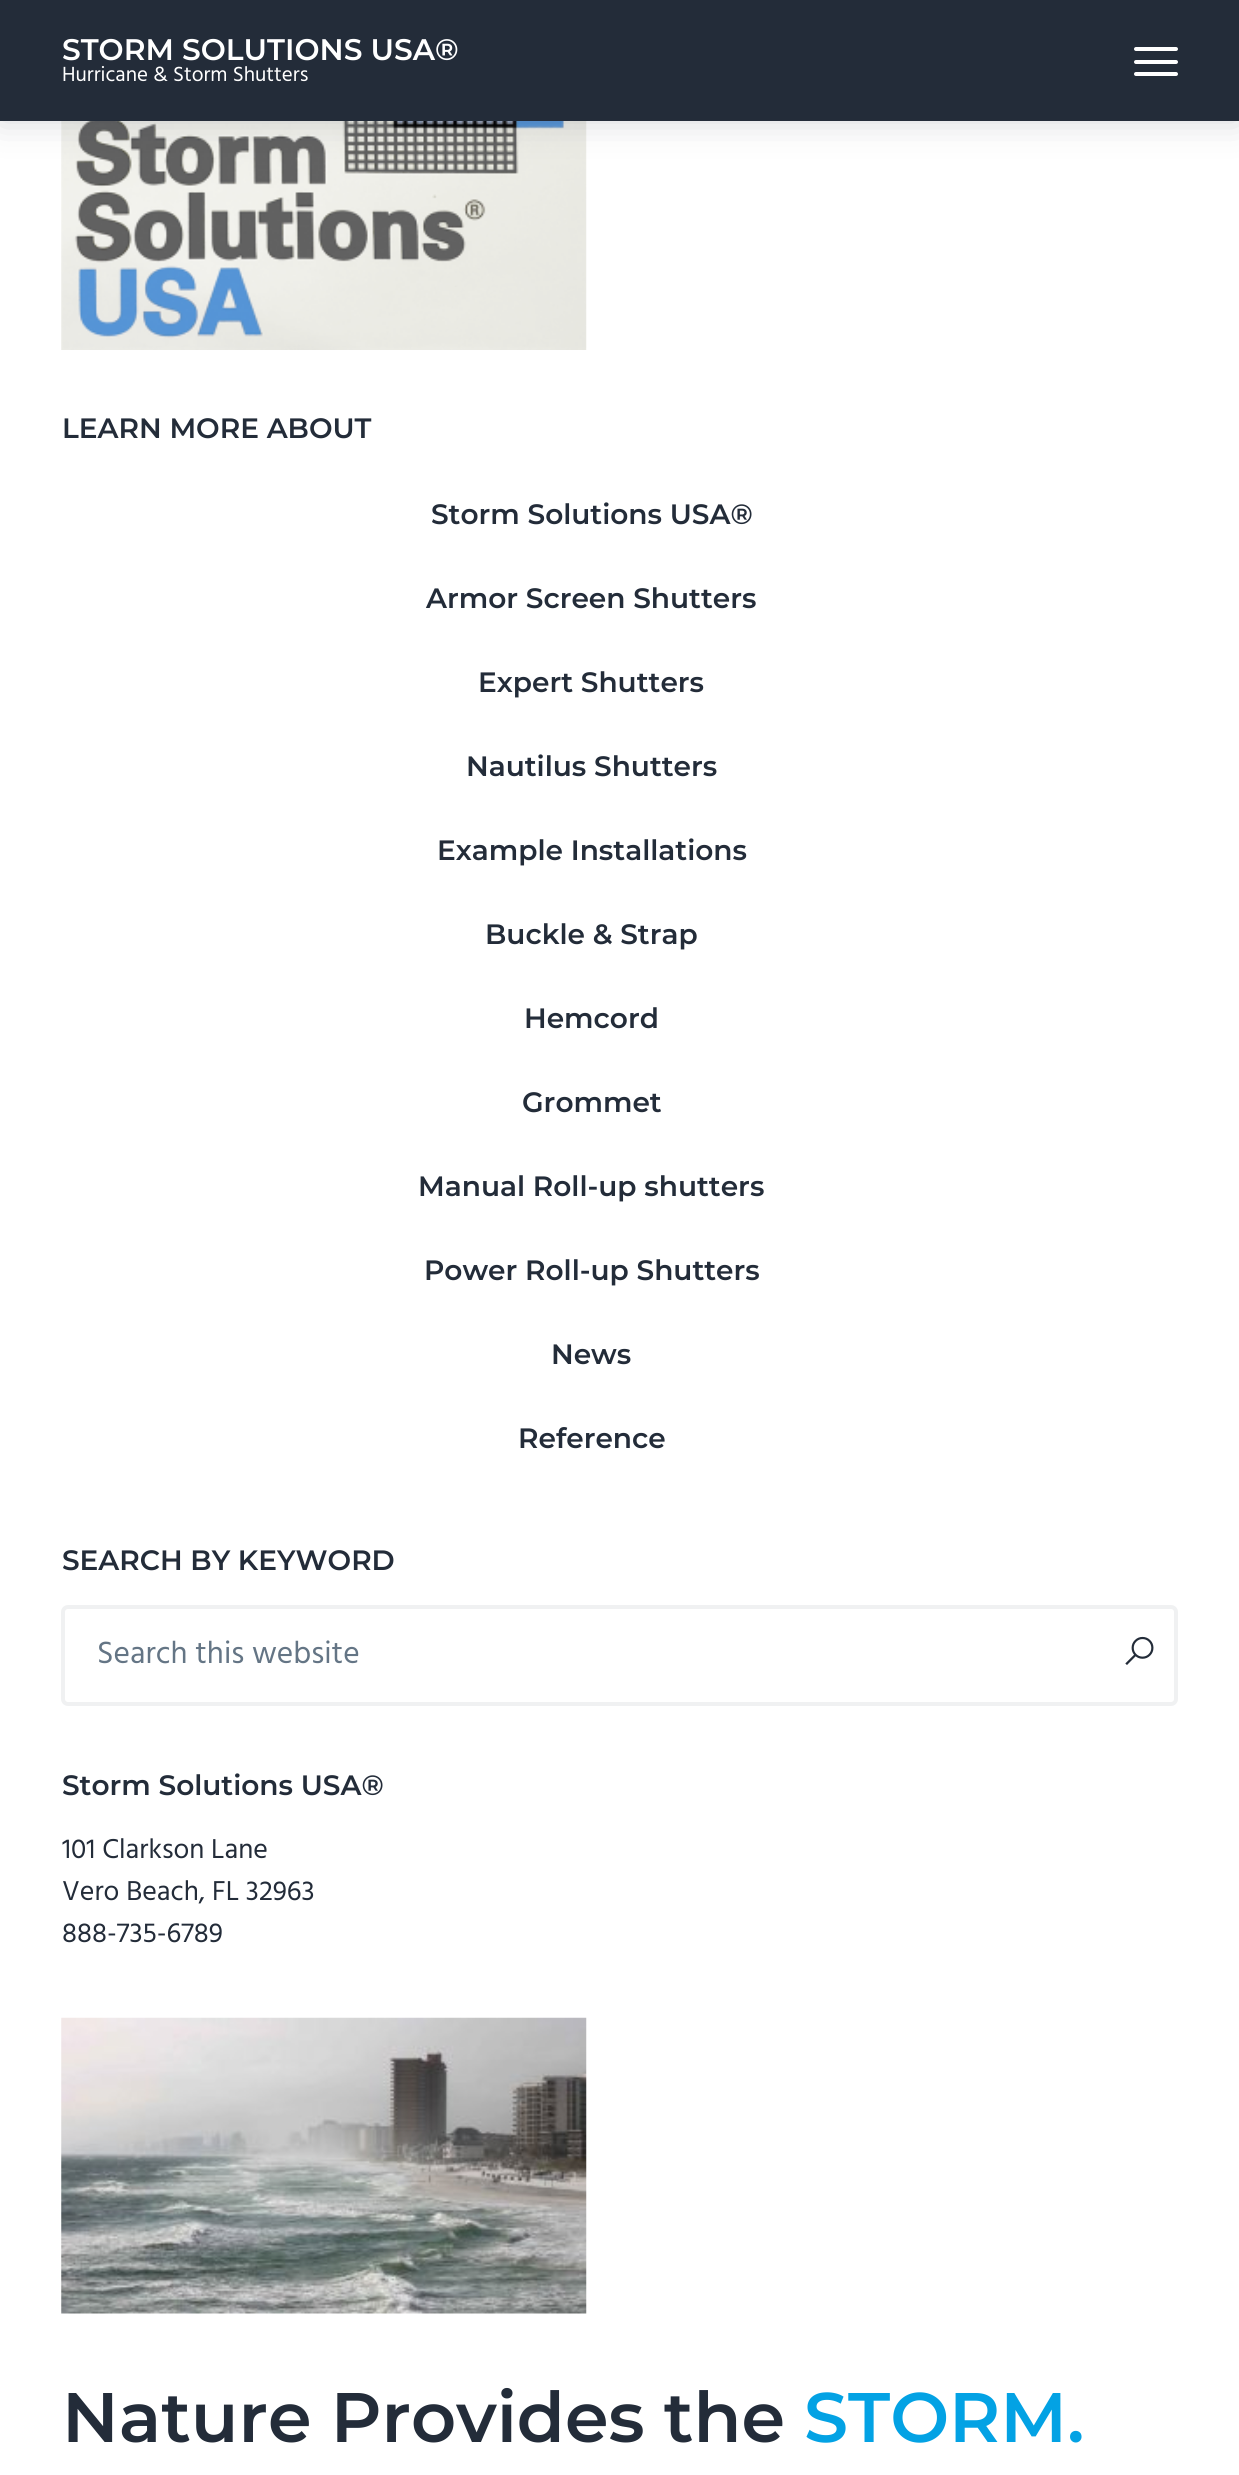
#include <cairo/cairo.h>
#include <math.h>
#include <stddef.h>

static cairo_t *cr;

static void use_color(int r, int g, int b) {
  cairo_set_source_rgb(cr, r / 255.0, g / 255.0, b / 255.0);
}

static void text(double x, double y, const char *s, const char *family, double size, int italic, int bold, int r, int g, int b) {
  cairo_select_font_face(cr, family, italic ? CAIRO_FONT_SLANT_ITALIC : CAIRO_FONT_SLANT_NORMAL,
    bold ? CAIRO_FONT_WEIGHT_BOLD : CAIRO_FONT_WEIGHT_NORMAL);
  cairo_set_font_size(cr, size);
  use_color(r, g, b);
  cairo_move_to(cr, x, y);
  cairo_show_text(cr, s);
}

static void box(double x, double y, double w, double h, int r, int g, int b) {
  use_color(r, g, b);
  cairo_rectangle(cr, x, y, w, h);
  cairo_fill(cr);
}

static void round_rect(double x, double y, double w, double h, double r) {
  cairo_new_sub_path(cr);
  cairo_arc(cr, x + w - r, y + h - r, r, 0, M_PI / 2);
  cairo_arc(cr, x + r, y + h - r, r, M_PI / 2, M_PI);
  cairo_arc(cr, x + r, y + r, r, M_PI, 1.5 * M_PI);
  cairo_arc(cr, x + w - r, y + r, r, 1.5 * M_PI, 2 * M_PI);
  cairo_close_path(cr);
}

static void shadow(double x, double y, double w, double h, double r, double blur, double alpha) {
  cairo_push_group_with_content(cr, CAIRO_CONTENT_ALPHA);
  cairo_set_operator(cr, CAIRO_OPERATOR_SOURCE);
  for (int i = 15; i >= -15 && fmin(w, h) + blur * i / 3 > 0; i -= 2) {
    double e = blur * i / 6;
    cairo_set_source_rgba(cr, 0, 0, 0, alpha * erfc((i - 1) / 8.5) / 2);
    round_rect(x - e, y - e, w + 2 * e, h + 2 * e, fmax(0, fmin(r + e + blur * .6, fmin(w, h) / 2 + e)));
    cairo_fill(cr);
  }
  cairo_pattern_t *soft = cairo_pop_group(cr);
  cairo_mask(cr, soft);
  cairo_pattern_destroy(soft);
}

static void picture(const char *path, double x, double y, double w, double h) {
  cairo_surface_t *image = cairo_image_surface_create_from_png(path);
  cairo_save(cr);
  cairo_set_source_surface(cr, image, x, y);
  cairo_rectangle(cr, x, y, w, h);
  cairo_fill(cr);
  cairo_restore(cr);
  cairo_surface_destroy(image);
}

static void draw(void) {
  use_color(255, 255, 255);
  cairo_paint(cr);
  picture("img_01.png", 61, 121, 526, 229);
  use_color(35, 44, 57);
  shadow(0, 0, 1239, 121, 0, 17.5, 0.2);
  box(0, 0, 1239, 121, 35, 44, 57);
  use_color(255, 255, 255);
  round_rect(1134, 60, 44, 4, 2);
  cairo_fill(cr);
  round_rect(1134, 47, 44, 4, 2);
  cairo_fill(cr);
  round_rect(1134, 72, 44, 4, 2);
  cairo_fill(cr);
  round_rect(63, 1607, 1113, 97, 5);
  use_color(240, 241, 242);
  cairo_set_line_width(cr, 4);
  cairo_stroke(cr);
  picture("img_02.png", 1125, 1636, 29, 29);
  picture("img_03.png", 61, 2017, 526, 297);
  text(62, 60, "STORM SOLUTIONS USA®", "Montserrat Thin", 29.75, 0, 0, 255, 255, 255);
  text(62, 81, "Hurricane & Storm Shutters", "Hind", 21, 0, 0, 255, 255, 255);
  text(62, 438, "LEARN MORE ABOUT", "Montserrat Thin", 28, 0, 0, 35, 44, 57);
  text(431, 524, "Storm Solutions USA®", "Montserrat Thin", 28, 0, 0, 35, 44, 57);
  text(426, 608, "Armor Screen Shutters", "Montserrat Thin", 28, 0, 0, 35, 44, 57);
  text(478, 692, "Expert Shutters", "Montserrat Thin", 28, 0, 0, 35, 44, 57);
  text(466, 776, "Nautilus Shutters", "Montserrat Thin", 28, 0, 0, 35, 44, 57);
  text(437, 860, "Example Installations", "Montserrat Thin", 28, 0, 0, 35, 44, 57);
  text(485, 944, "Buckle & Strap", "Montserrat Thin", 28, 0, 0, 35, 44, 57);
  text(524, 1028, "Hemcord", "Montserrat Thin", 28, 0, 0, 35, 44, 57);
  text(522, 1112, "Grommet", "Montserrat Thin", 28, 0, 0, 35, 44, 57);
  text(418, 1196, "Manual Roll-up shutters", "Montserrat Thin", 28, 0, 0, 35, 44, 57);
  text(424, 1280, "Power Roll-up Shutters", "Montserrat Thin", 28, 0, 0, 35, 44, 57);
  text(551, 1364, "News", "Montserrat Thin", 28, 0, 0, 35, 44, 57);
  text(518, 1448, "Reference", "Montserrat Thin", 28, 0, 0, 35, 44, 57);
  text(62, 1570, "SEARCH BY KEYWORD", "Montserrat Thin", 28, 0, 0, 35, 44, 57);
  text(97, 1663, "Search this website", "Hind", 31.5, 0, 0, 100, 117, 133);
  text(62, 1795, "Storm Solutions USA®", "Montserrat Thin", 28, 0, 0, 35, 44, 57);
  text(62, 1858, "101 Clarkson Lane", "Hind", 28, 0, 0, 35, 44, 57);
  text(62, 1900, "Vero Beach, FL 32963", "Hind", 28, 0, 0, 35, 44, 57);
  text(62, 1942, "888-735-6789", "Hind", 28, 0, 0, 35, 44, 57);
  text(62, 2442, "Nature Provides the", "Montserrat Thin", 70, 0, 0, 35, 44, 57);
  text(804, 2442, "STORM.", "Montserrat Thin", 70, 0, 0, 3, 162, 228);
}

int main(void) {
  cairo_surface_t *surface = cairo_image_surface_create(CAIRO_FORMAT_RGB24, 1239, 2475);
  cr = cairo_create(surface);
  cairo_font_options_t *options = cairo_font_options_create();
  cairo_font_options_set_hint_metrics(options, CAIRO_HINT_METRICS_OFF);
  cairo_font_options_set_hint_style(options, CAIRO_HINT_STYLE_NONE);
  cairo_set_font_options(cr, options);
  cairo_set_miter_limit(cr, 4);
  draw();
  cairo_surface_write_to_png(surface, "out.png");
  cairo_font_options_destroy(options);
  cairo_destroy(cr);
  cairo_surface_destroy(surface);
  return 0;
}
